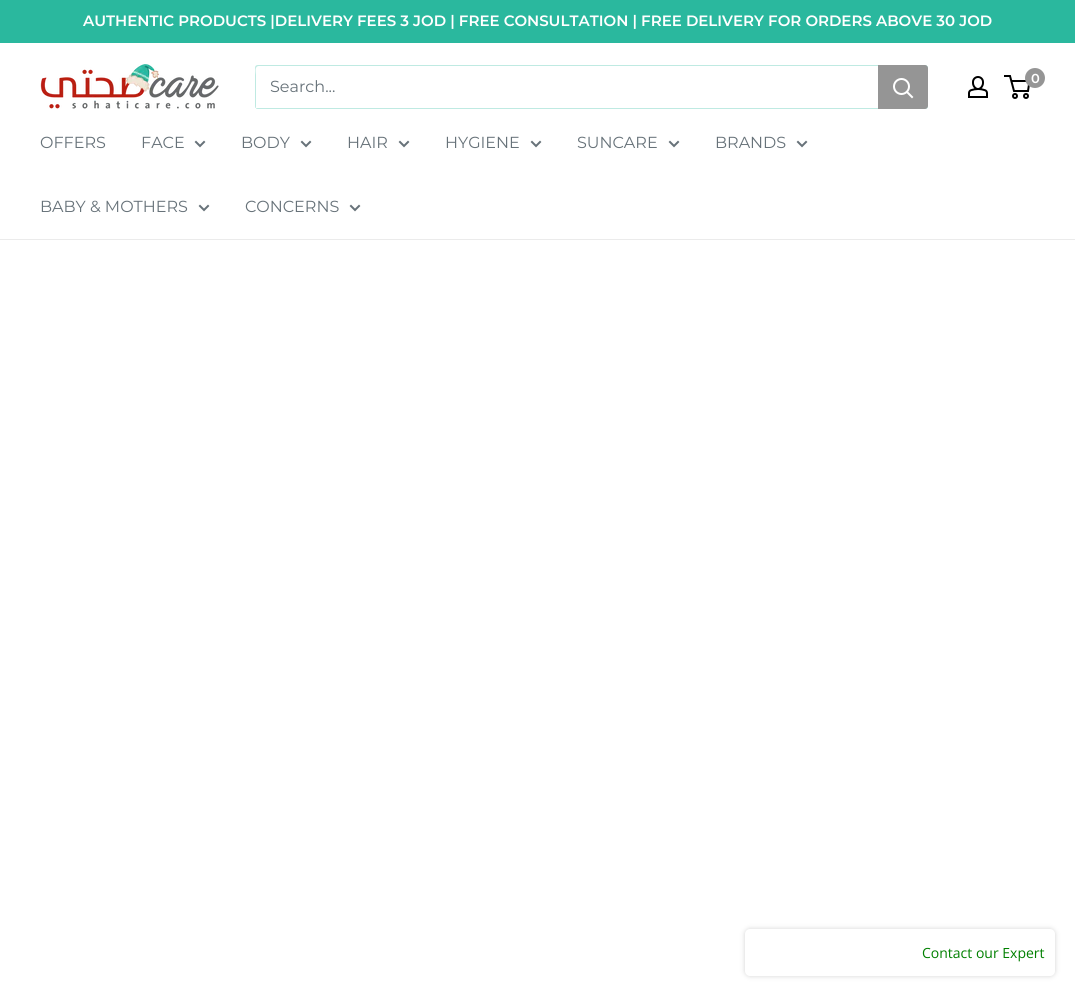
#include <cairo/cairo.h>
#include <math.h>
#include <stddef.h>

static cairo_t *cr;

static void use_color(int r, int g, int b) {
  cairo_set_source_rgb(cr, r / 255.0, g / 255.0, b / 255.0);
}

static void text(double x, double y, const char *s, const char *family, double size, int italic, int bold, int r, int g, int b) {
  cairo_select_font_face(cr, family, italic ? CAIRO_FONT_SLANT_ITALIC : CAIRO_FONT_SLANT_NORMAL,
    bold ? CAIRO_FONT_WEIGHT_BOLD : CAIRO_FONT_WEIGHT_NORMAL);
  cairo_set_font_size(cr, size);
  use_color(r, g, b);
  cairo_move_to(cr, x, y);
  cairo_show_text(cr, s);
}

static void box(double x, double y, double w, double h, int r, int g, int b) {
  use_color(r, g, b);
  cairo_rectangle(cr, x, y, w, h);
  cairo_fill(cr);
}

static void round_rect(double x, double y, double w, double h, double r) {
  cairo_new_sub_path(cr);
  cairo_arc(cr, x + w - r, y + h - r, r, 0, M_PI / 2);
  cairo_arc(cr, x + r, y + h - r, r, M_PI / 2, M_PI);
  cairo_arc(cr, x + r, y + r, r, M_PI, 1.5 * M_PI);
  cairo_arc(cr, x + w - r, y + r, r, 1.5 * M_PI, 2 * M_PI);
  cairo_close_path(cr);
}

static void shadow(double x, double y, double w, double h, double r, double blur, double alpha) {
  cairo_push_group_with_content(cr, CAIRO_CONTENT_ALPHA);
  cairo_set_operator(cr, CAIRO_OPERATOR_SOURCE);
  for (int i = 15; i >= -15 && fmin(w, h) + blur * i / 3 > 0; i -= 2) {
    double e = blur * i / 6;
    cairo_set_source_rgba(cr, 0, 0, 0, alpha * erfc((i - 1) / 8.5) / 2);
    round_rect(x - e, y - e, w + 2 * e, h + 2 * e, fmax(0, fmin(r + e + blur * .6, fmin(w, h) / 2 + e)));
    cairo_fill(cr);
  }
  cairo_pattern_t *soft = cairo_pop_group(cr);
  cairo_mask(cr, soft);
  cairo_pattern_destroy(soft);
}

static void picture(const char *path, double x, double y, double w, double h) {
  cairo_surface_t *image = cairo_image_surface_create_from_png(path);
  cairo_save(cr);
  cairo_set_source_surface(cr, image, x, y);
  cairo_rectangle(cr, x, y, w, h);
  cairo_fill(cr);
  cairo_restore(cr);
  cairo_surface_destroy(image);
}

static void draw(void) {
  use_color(255, 255, 255);
  cairo_paint(cr);
  box(0, 0, 1075, 43, 42, 184, 158);
  picture("img_01.png", 40, 64, 179, 45);
  picture("img_02.png", 968, 76, 20, 22);
  cairo_arc(cr, 1015, 96, 2, 0, 2 * M_PI);
  use_color(0, 0, 0);
  cairo_stroke(cr);
  cairo_arc(cr, 1026, 96, 2, 0, 2 * M_PI);
  cairo_stroke(cr);
  cairo_new_path(cr);
  cairo_move_to(cr, 1011.5, 81);
  cairo_line_to(cr, 1029.5, 81);
  cairo_line_to(cr, 1028, 91);
  cairo_line_to(cr, 1014, 91);
  cairo_line_to(cr, 1010, 76);
  cairo_line_to(cr, 1004, 76);
  cairo_stroke(cr);
  use_color(149, 149, 149);
  cairo_arc(cr, 1035, 78, 10, 0, 2 * M_PI);
  cairo_fill(cr);
  use_color(191, 234, 226);
  cairo_new_path(cr);
  cairo_move_to(cr, 256, 108);
  cairo_curve_to(cr, 256, 109, 257, 109, 258, 109);
  cairo_line_to(cr, 925, 109);
  cairo_curve_to(cr, 927, 109, 928, 108, 928, 106);
  cairo_line_to(cr, 928, 68);
  cairo_curve_to(cr, 928, 67, 928, 66, 927, 66);
  cairo_line_to(cr, 927, 99);
  cairo_curve_to(cr, 927, 101, 929, 108, 924, 108);
  cairo_close_path(cr);
  cairo_fill(cr);
  cairo_new_path(cr);
  cairo_move_to(cr, 259, 66);
  cairo_line_to(cr, 927, 66);
  cairo_curve_to(cr, 927, 65, 926, 65, 925, 65);
  cairo_line_to(cr, 258, 65);
  cairo_curve_to(cr, 256, 65, 255, 66, 255, 68);
  cairo_line_to(cr, 255, 106);
  cairo_curve_to(cr, 255, 107, 255, 108, 256, 108);
  cairo_line_to(cr, 256, 75);
  cairo_curve_to(cr, 256, 73, 254, 66, 259, 66);
  cairo_close_path(cr);
  cairo_fill(cr);
  use_color(149, 149, 149);
  cairo_new_path(cr);
  cairo_move_to(cr, 878, 65);
  cairo_line_to(cr, 925, 65);
  cairo_curve_to(cr, 926.5, 65, 928, 66.5, 928, 68);
  cairo_line_to(cr, 928, 106);
  cairo_curve_to(cr, 928, 107.5, 926.5, 109, 925, 109);
  cairo_line_to(cr, 878, 109);
  cairo_close_path(cr);
  cairo_fill(cr);
  cairo_new_path(cr);
  cairo_move_to(cr, 912, 97);
  cairo_line_to(cr, 907, 92);
  use_color(255, 255, 255);
  cairo_set_line_cap(cr, CAIRO_LINE_CAP_SQUARE);
  cairo_stroke(cr);
  cairo_arc(cr, 901.5, 86.5, 7.5, 0, 2 * M_PI);
  cairo_set_line_cap(cr, CAIRO_LINE_CAP_BUTT);
  cairo_stroke(cr);
  box(0, 239, 1075, 1, 235, 235, 235);
  cairo_new_path(cr);
  cairo_move_to(cr, 204, 142);
  cairo_line_to(cr, 200, 146);
  cairo_line_to(cr, 196, 142);
  use_color(103, 114, 121);
  cairo_set_line_cap(cr, CAIRO_LINE_CAP_SQUARE);
  cairo_stroke(cr);
  cairo_new_path(cr);
  cairo_move_to(cr, 310, 142);
  cairo_line_to(cr, 306, 146);
  cairo_line_to(cr, 302, 142);
  cairo_stroke(cr);
  cairo_new_path(cr);
  cairo_move_to(cr, 408, 142);
  cairo_line_to(cr, 404, 146);
  cairo_line_to(cr, 400, 142);
  cairo_stroke(cr);
  cairo_new_path(cr);
  cairo_move_to(cr, 540, 142);
  cairo_line_to(cr, 536, 146);
  cairo_line_to(cr, 532, 142);
  cairo_stroke(cr);
  cairo_new_path(cr);
  cairo_move_to(cr, 678, 142);
  cairo_line_to(cr, 674, 146);
  cairo_line_to(cr, 670, 142);
  cairo_stroke(cr);
  cairo_new_path(cr);
  cairo_move_to(cr, 806, 142);
  cairo_line_to(cr, 802, 146);
  cairo_line_to(cr, 798, 142);
  cairo_stroke(cr);
  cairo_new_path(cr);
  cairo_move_to(cr, 208, 206);
  cairo_line_to(cr, 204, 210);
  cairo_line_to(cr, 200, 206);
  cairo_stroke(cr);
  cairo_new_path(cr);
  cairo_move_to(cr, 359, 206);
  cairo_line_to(cr, 355, 210);
  cairo_line_to(cr, 351, 206);
  cairo_stroke(cr);
  use_color(211, 211, 211);
  shadow(745, 929, 310, 47, 5, 2.5, 1);
  use_color(255, 255, 255);
  round_rect(745, 929, 310, 47, 5);
  cairo_fill(cr);
  text(83, 26, "AUTHENTIC PRODUCTS |DELIVERY FEES 3 JOD | FREE CONSULTATION | FREE DELIVERY FOR ORDERS ABOVE 30 JOD", "Montserrat SemiBold", 15, 0, 0, 255, 255, 255);
  text(1031, 83, "0", "Montserrat SemiBold", 13, 0, 0, 255, 255, 255);
  text(270, 92, "Search...", "Montserrat", 16, 0, 0, 103, 114, 121);
  text(40, 148, "OFFERS", "Montserrat", 16, 0, 0, 103, 114, 121);
  text(141, 148, "FACE", "Montserrat", 16, 0, 0, 103, 114, 121);
  text(241, 148, "BODY", "Montserrat", 16, 0, 0, 103, 114, 121);
  text(347, 148, "HAIR", "Montserrat", 16, 0, 0, 103, 114, 121);
  text(445, 148, "HYGIENE", "Montserrat", 16, 0, 0, 103, 114, 121);
  text(577, 148, "SUNCARE", "Montserrat", 16, 0, 0, 103, 114, 121);
  text(715, 148, "BRANDS", "Montserrat", 16, 0, 0, 103, 114, 121);
  text(40, 212, "BABY & MOTHERS", "Montserrat", 16, 0, 0, 103, 114, 121);
  text(245, 212, "CONCERNS", "Montserrat", 16, 0, 0, 103, 114, 121);
  text(922, 958, "Contact our Expert", "Open Sans", 14, 0, 0, 0, 128, 0);
}

int main(void) {
  cairo_surface_t *surface = cairo_image_surface_create(CAIRO_FORMAT_RGB24, 1075, 996);
  cr = cairo_create(surface);
  cairo_font_options_t *options = cairo_font_options_create();
  cairo_font_options_set_hint_metrics(options, CAIRO_HINT_METRICS_OFF);
  cairo_font_options_set_hint_style(options, CAIRO_HINT_STYLE_NONE);
  cairo_set_font_options(cr, options);
  cairo_set_miter_limit(cr, 4);
  draw();
  cairo_surface_write_to_png(surface, "out.png");
  cairo_font_options_destroy(options);
  cairo_destroy(cr);
  cairo_surface_destroy(surface);
  return 0;
}
